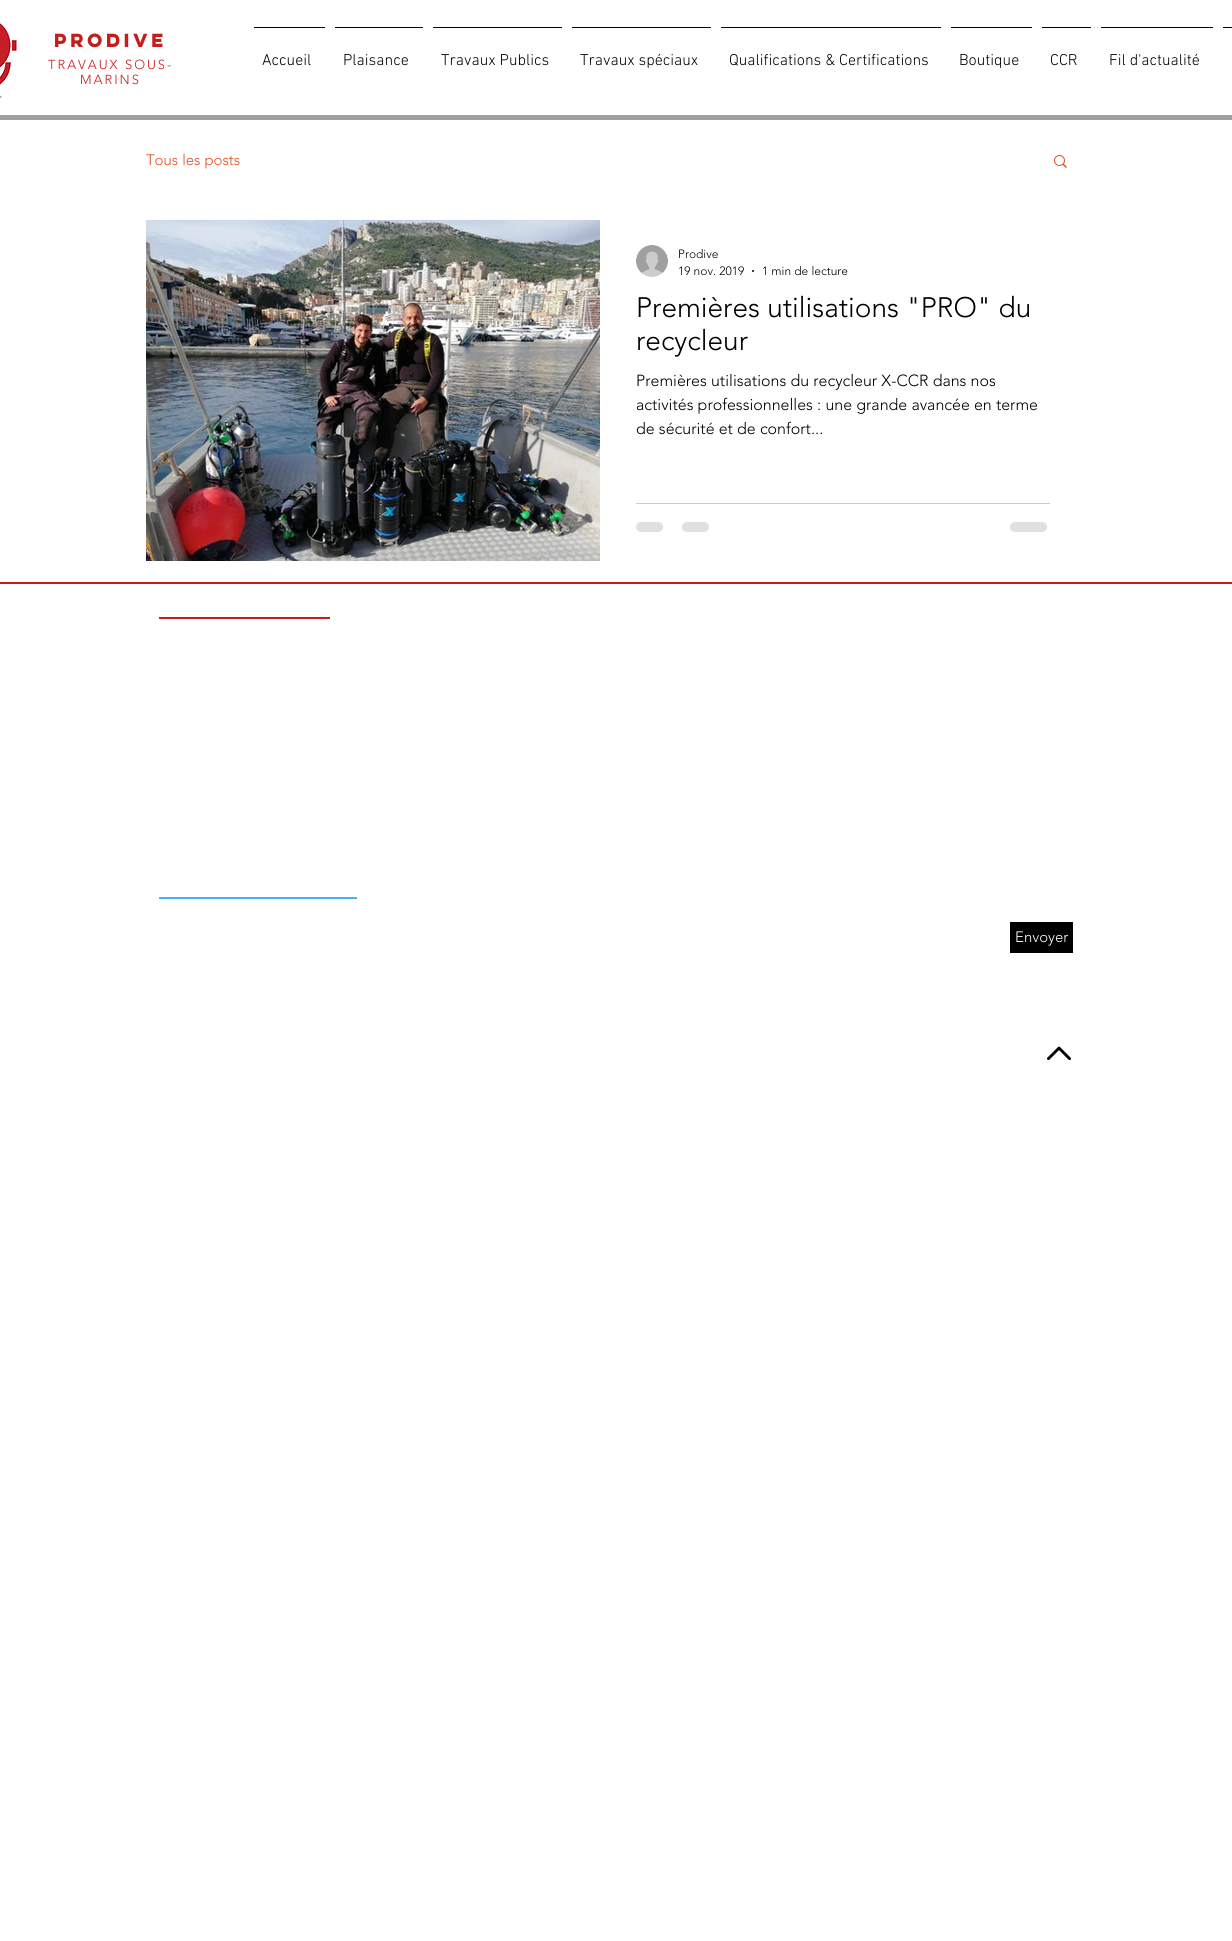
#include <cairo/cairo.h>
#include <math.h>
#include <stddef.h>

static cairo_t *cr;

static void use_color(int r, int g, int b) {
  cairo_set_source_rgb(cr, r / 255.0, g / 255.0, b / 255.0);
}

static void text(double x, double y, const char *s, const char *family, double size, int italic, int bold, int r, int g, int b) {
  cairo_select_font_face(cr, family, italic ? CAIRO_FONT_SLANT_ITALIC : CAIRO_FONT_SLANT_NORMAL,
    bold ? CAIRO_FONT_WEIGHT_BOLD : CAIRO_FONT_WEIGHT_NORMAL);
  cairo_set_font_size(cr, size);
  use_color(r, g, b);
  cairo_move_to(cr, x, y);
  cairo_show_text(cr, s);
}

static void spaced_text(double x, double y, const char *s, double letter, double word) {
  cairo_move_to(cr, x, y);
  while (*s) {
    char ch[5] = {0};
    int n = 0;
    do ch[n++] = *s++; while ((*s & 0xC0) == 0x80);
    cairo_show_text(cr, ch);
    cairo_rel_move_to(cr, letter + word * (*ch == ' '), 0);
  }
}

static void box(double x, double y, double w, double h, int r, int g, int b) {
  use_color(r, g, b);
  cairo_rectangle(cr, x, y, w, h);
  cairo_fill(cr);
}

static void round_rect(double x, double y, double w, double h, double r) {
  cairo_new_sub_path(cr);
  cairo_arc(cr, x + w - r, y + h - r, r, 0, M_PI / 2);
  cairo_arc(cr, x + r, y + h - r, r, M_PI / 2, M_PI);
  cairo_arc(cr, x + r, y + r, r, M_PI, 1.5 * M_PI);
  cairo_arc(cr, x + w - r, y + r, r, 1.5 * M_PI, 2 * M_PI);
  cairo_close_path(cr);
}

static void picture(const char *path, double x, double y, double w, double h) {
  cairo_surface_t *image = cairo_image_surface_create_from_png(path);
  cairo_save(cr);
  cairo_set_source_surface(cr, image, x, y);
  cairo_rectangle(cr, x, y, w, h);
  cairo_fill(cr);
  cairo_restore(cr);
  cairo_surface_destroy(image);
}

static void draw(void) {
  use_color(255, 255, 255);
  cairo_paint(cr);
  picture("img_01.png", 0, 23, 17, 75);
  box(1223, 27, 9, 1, 0, 0, 0);
  box(254, 27, 71, 1, 0, 0, 0);
  box(335, 27, 88, 1, 0, 0, 0);
  box(433, 27, 129, 1, 0, 0, 0);
  box(572, 27, 139, 1, 0, 0, 0);
  box(721, 27, 220, 1, 0, 0, 0);
  box(951, 27, 81, 1, 0, 0, 0);
  box(1042, 27, 49, 1, 0, 0, 0);
  box(1101, 27, 112, 1, 0, 0, 0);
  box(0, 115, 1232, 5, 160, 160, 159);
  picture("img_02.png", 1054, 155, 13, 13);
  picture("img_03.png", 146, 220, 454, 341);
  picture("img_04.png", 636, 245, 32, 32);
  use_color(0, 0, 0);
  cairo_arc(cr, 753, 271, 1, 0, 2 * M_PI);
  cairo_fill(cr);
  box(636, 503, 414, 1, 204, 204, 204);
  use_color(224, 224, 224);
  round_rect(636, 522, 27, 10, 5);
  cairo_fill(cr);
  round_rect(682, 522, 27, 10, 5);
  cairo_fill(cr);
  round_rect(1010, 522, 37, 10, 5);
  cairo_fill(cr);
  box(0, 582, 1232, 2, 199, 28, 28);
  box(159, 617, 171, 2, 199, 28, 28);
  box(159, 897, 198, 2, 68, 181, 242);
  box(1010, 922, 63, 31, 0, 0, 0);
  picture("img_05.png", 1047, 1046, 24, 15);
  text(54, 47, "PRODIVE", "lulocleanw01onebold", 17, 0, 1, 199, 28, 28);
  cairo_select_font_face(cr, "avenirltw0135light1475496 Light", CAIRO_FONT_SLANT_NORMAL, CAIRO_FONT_WEIGHT_NORMAL);
  cairo_set_font_size(cr, 13);
  spaced_text(48, 69, "TRAVAUX SOUS-", 2, 0);
  spaced_text(80, 84, "MARINS", 2, 0);
  text(262, 65, "Accueil", "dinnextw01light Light", 16, 0, 0, 0, 0, 0);
  text(343, 65, "Plaisance", "dinnextw01light Light", 16, 0, 0, 0, 0, 0);
  text(441, 65, "Travaux Publics", "dinnextw01light Light", 16, 0, 0, 0, 0, 0);
  text(580, 65, "Travaux spéciaux", "dinnextw01light Light", 16, 0, 0, 0, 0, 0);
  text(729, 65, "Qualifications & Certifications", "dinnextw01light Light", 16, 0, 0, 0, 0, 0);
  text(959, 65, "Boutique", "dinnextw01light Light", 16, 0, 0, 0, 0, 0);
  text(1050, 65, "CCR", "dinnextw01light Light", 16, 0, 0, 0, 0, 0);
  text(1109, 65, "Fil d'actualité", "dinnextw01light Light", 16, 0, 0, 0, 0, 0);
  text(146, 165, "Tous les posts", "avenirltw0135light1475496 Light", 15, 0, 0, 222, 80, 33);
  text(678, 258, "Prodive", "avenirltw0135light1475496 Light", 12, 0, 0, 0, 0, 0);
  text(678, 275, "19 nov. 2019", "avenirltw0135light1475496 Light", 12, 0, 0, 0, 0, 0);
  text(762, 275, "1 min de lecture", "avenirltw0135light1475496 Light", 12, 0, 0, 0, 0, 0);
  text(636, 317, "Premières utilisations \"PRO\" du", "avenirltw0135light1475496 Light", 28, 0, 0, 0, 0, 0);
  text(636, 350, "recycleur", "avenirltw0135light1475496 Light", 28, 0, 0, 0, 0, 0);
  text(636, 386, "Premières utilisations du recycleur X-CCR dans nos", "avenirltw0135light1475496 Light", 16, 0, 0, 0, 0, 0);
  text(636, 410, "activités professionnelles : une grande avancée en terme", "avenirltw0135light1475496 Light", 16, 0, 0, 0, 0, 0);
  text(636, 434, "de sécurité et de confort...", "avenirltw0135light1475496 Light", 16, 0, 0, 0, 0, 0);
  text(1015, 942, "Envoyer", "avenirltw0135light1475496 Light", 15, 0, 0, 255, 255, 255);
}

int main(void) {
  cairo_surface_t *surface = cairo_image_surface_create(CAIRO_FORMAT_RGB24, 1232, 1941);
  cr = cairo_create(surface);
  cairo_font_options_t *options = cairo_font_options_create();
  cairo_font_options_set_hint_metrics(options, CAIRO_HINT_METRICS_OFF);
  cairo_font_options_set_hint_style(options, CAIRO_HINT_STYLE_NONE);
  cairo_set_font_options(cr, options);
  cairo_set_miter_limit(cr, 4);
  draw();
  cairo_surface_write_to_png(surface, "out.png");
  cairo_font_options_destroy(options);
  cairo_destroy(cr);
  cairo_surface_destroy(surface);
  return 0;
}
